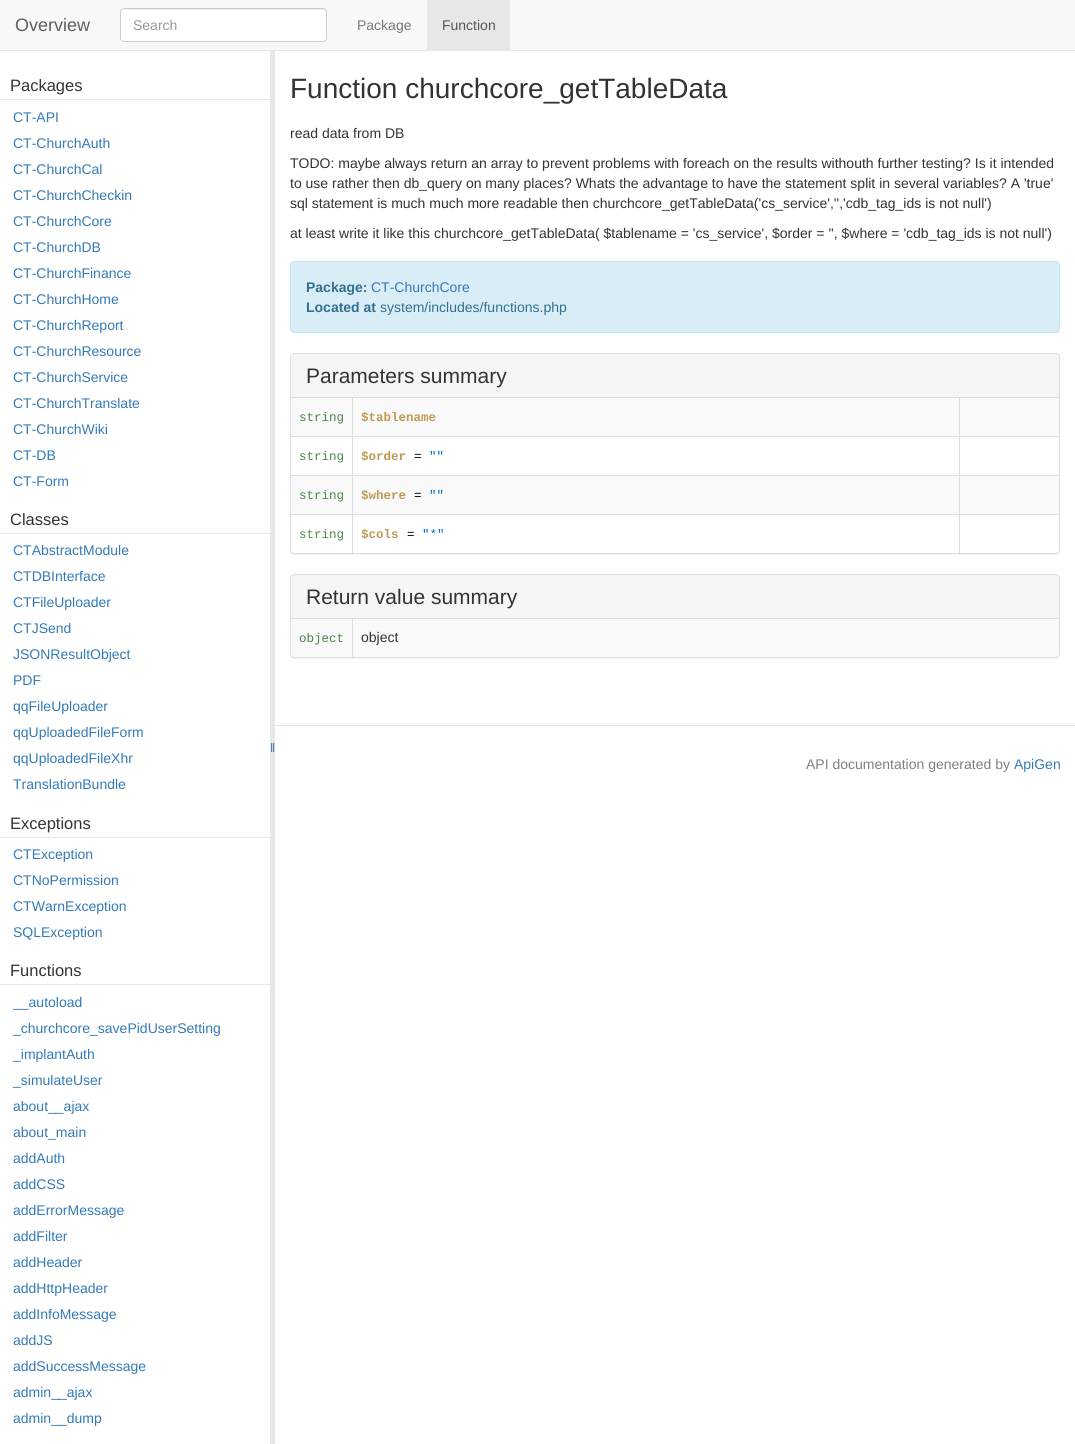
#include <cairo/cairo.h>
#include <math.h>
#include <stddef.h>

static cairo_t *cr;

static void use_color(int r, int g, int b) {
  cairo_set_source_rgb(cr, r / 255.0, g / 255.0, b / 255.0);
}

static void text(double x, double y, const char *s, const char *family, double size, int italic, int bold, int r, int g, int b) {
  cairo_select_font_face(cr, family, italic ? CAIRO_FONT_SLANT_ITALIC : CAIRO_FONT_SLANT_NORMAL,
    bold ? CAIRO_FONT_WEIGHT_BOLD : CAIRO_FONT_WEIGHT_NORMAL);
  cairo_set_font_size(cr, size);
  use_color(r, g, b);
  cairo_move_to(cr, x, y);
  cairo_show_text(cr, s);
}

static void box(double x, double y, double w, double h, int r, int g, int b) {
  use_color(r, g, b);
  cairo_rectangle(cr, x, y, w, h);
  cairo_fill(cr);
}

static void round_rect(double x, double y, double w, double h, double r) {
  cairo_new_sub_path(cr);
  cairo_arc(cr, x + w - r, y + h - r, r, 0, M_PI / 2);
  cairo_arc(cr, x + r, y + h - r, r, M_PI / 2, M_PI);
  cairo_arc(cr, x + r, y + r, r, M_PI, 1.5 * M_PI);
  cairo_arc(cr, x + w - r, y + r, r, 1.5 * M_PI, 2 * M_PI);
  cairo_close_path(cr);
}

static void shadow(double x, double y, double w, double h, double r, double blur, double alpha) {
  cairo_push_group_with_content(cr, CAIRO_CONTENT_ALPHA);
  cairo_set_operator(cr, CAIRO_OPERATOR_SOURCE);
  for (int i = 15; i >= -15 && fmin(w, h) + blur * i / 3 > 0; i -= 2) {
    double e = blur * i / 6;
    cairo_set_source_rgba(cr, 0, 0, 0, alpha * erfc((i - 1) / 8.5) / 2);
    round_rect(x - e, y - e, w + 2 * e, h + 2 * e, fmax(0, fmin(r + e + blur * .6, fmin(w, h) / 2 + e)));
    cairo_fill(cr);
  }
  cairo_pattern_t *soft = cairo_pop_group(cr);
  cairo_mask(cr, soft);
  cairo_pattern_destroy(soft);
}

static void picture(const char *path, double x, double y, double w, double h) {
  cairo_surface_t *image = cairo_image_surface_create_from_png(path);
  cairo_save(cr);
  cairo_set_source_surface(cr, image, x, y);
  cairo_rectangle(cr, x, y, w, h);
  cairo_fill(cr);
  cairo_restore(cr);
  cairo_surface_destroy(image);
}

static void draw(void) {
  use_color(255, 255, 255);
  cairo_paint(cr);
  box(0, 0, 1075, 50, 248, 248, 248);
  box(270, 50, 5, 1394, 231, 231, 231);
  box(0, 50, 1075, 1, 231, 231, 231);
  use_color(255, 255, 255);
  round_rect(120, 8, 207, 34, 4);
  cairo_fill(cr);
  use_color(236, 236, 236);
  cairo_new_path(cr);
  cairo_move_to(cr, 124, 10);
  cairo_line_to(cr, 323, 10);
  cairo_curve_to(cr, 325, 10, 326, 11, 326, 13);
  cairo_curve_to(cr, 326, 11, 325, 9, 323, 9);
  cairo_line_to(cr, 124, 9);
  cairo_curve_to(cr, 122, 9, 121, 11, 121, 13);
  cairo_curve_to(cr, 121, 11, 122, 10, 124, 10);
  cairo_close_path(cr);
  cairo_fill(cr);
  round_rect(120.5, 8.5, 206, 33, 3.5);
  use_color(204, 204, 204);
  cairo_set_line_width(cr, 1);
  cairo_stroke(cr);
  box(427, 0, 83, 50, 231, 231, 231);
  box(0, 99, 270, 1, 231, 231, 231);
  box(0, 533, 270, 1, 231, 231, 231);
  box(0, 837, 270, 1, 231, 231, 231);
  box(0, 984, 270, 1, 231, 231, 231);
  picture("img_01.png", 271, 743, 4, 9);
  use_color(217, 237, 247);
  round_rect(290.5, 261.5, 769, 71, 3.5);
  cairo_fill_preserve(cr);
  use_color(188, 232, 241);
  cairo_stroke(cr);
  use_color(0, 0, 0);
  shadow(290, 354, 770, 201, 4, 0.5, 0.05);
  use_color(255, 255, 255);
  round_rect(290.5, 353.5, 769, 200, 3.5);
  cairo_fill_preserve(cr);
  use_color(221, 221, 221);
  cairo_stroke(cr);
  use_color(245, 245, 245);
  cairo_new_path(cr);
  cairo_move_to(cr, 294, 354);
  cairo_line_to(cr, 1056, 354);
  cairo_curve_to(cr, 1057.5, 354, 1059, 355.5, 1059, 357);
  cairo_line_to(cr, 1059, 398);
  cairo_line_to(cr, 291, 398);
  cairo_line_to(cr, 291, 357);
  cairo_curve_to(cr, 291, 355.5, 292.5, 354, 294, 354);
  cairo_close_path(cr);
  cairo_fill(cr);
  box(291, 397, 768, 1, 221, 221, 221);
  box(291, 398, 768, 38, 249, 249, 249);
  box(959, 436, 101, 1, 221, 221, 221);
  box(959, 475, 101, 1, 221, 221, 221);
  box(291, 476, 768, 38, 249, 249, 249);
  box(959, 514, 101, 1, 221, 221, 221);
  box(959, 514, 1, 40, 221, 221, 221);
  box(352, 514, 608, 1, 221, 221, 221);
  box(959, 475, 1, 40, 221, 221, 221);
  box(352, 475, 608, 1, 221, 221, 221);
  box(959, 436, 1, 40, 221, 221, 221);
  box(352, 436, 608, 1, 221, 221, 221);
  box(352, 514, 1, 40, 221, 221, 221);
  box(291, 514, 62, 1, 221, 221, 221);
  box(352, 475, 1, 40, 221, 221, 221);
  box(291, 475, 62, 1, 221, 221, 221);
  box(352, 436, 1, 40, 221, 221, 221);
  box(291, 436, 62, 1, 221, 221, 221);
  box(352, 398, 1, 39, 221, 221, 221);
  box(959, 398, 1, 39, 221, 221, 221);
  use_color(0, 0, 0);
  shadow(290, 575, 770, 84, 4, 0.5, 0.05);
  round_rect(290.5, 574.5, 769, 83, 3.5);
  use_color(221, 221, 221);
  cairo_stroke(cr);
  use_color(245, 245, 245);
  cairo_new_path(cr);
  cairo_move_to(cr, 294, 575);
  cairo_line_to(cr, 1056, 575);
  cairo_curve_to(cr, 1057.5, 575, 1059, 576.5, 1059, 578);
  cairo_line_to(cr, 1059, 619);
  cairo_line_to(cr, 291, 619);
  cairo_line_to(cr, 291, 578);
  cairo_curve_to(cr, 291, 576.5, 292.5, 575, 294, 575);
  cairo_close_path(cr);
  cairo_fill(cr);
  box(291, 618, 768, 1, 221, 221, 221);
  use_color(249, 249, 249);
  cairo_new_path(cr);
  cairo_move_to(cr, 291, 619);
  cairo_line_to(cr, 1059, 619);
  cairo_line_to(cr, 1059, 654);
  cairo_curve_to(cr, 1059, 655.5, 1057.5, 657, 1056, 657);
  cairo_line_to(cr, 294, 657);
  cairo_curve_to(cr, 292.5, 657, 291, 655.5, 291, 654);
  cairo_close_path(cr);
  cairo_fill(cr);
  box(352, 619, 1, 39, 221, 221, 221);
  box(275, 725, 800, 1, 229, 229, 229);
  text(15, 31, "Overview", "Liberation Sans", 18, 0, 0, 94, 94, 94);
  text(133, 30, "Search", "Liberation Sans", 14, 0, 0, 153, 153, 153);
  text(357, 30, "Package", "Liberation Sans", 14, 0, 0, 119, 119, 119);
  text(442, 30, "Function", "Liberation Sans", 14, 0, 0, 85, 85, 85);
  text(10, 91, "Packages", "Liberation Sans", 16.5, 0, 0, 51, 51, 51);
  text(13, 122, "CT-API", "Liberation Sans", 14, 0, 0, 51, 122, 183);
  text(13, 148, "CT-ChurchAuth", "Liberation Sans", 14, 0, 0, 51, 122, 183);
  text(13, 174, "CT-ChurchCal", "Liberation Sans", 14, 0, 0, 51, 122, 183);
  text(13, 200, "CT-ChurchCheckin", "Liberation Sans", 14, 0, 0, 51, 122, 183);
  text(13, 226, "CT-ChurchCore", "Liberation Sans", 14, 0, 0, 51, 122, 183);
  text(13, 252, "CT-ChurchDB", "Liberation Sans", 14, 0, 0, 51, 122, 183);
  text(13, 278, "CT-ChurchFinance", "Liberation Sans", 14, 0, 0, 51, 122, 183);
  text(13, 304, "CT-ChurchHome", "Liberation Sans", 14, 0, 0, 51, 122, 183);
  text(13, 330, "CT-ChurchReport", "Liberation Sans", 14, 0, 0, 51, 122, 183);
  text(13, 356, "CT-ChurchResource", "Liberation Sans", 14, 0, 0, 51, 122, 183);
  text(13, 382, "CT-ChurchService", "Liberation Sans", 14, 0, 0, 51, 122, 183);
  text(13, 408, "CT-ChurchTranslate", "Liberation Sans", 14, 0, 0, 51, 122, 183);
  text(13, 434, "CT-ChurchWiki", "Liberation Sans", 14, 0, 0, 51, 122, 183);
  text(13, 460, "CT-DB", "Liberation Sans", 14, 0, 0, 51, 122, 183);
  text(13, 486, "CT-Form", "Liberation Sans", 14, 0, 0, 51, 122, 183);
  text(10, 525, "Classes", "Liberation Sans", 16.5, 0, 0, 51, 51, 51);
  text(13, 555, "CTAbstractModule", "Liberation Sans", 14, 0, 0, 51, 122, 183);
  text(13, 581, "CTDBInterface", "Liberation Sans", 14, 0, 0, 51, 122, 183);
  text(13, 607, "CTFileUploader", "Liberation Sans", 14, 0, 0, 51, 122, 183);
  text(13, 633, "CTJSend", "Liberation Sans", 14, 0, 0, 51, 122, 183);
  text(13, 659, "JSONResultObject", "Liberation Sans", 14, 0, 0, 51, 122, 183);
  text(13, 685, "PDF", "Liberation Sans", 14, 0, 0, 51, 122, 183);
  text(13, 711, "qqFileUploader", "Liberation Sans", 14, 0, 0, 51, 122, 183);
  text(13, 737, "qqUploadedFileForm", "Liberation Sans", 14, 0, 0, 51, 122, 183);
  text(13, 763, "qqUploadedFileXhr", "Liberation Sans", 14, 0, 0, 51, 122, 183);
  text(13, 789, "TranslationBundle", "Liberation Sans", 14, 0, 0, 51, 122, 183);
  text(10, 829, "Exceptions", "Liberation Sans", 16.5, 0, 0, 51, 51, 51);
  text(13, 859, "CTException", "Liberation Sans", 14, 0, 0, 51, 122, 183);
  text(13, 885, "CTNoPermission", "Liberation Sans", 14, 0, 0, 51, 122, 183);
  text(13, 911, "CTWarnException", "Liberation Sans", 14, 0, 0, 51, 122, 183);
  text(13, 937, "SQLException", "Liberation Sans", 14, 0, 0, 51, 122, 183);
  text(10, 976, "Functions", "Liberation Sans", 16.5, 0, 0, 51, 51, 51);
  text(13, 1007, "__autoload", "Liberation Sans", 14, 0, 0, 51, 122, 183);
  text(13, 1033, "_churchcore_savePidUserSetting", "Liberation Sans", 14, 0, 0, 51, 122, 183);
  text(13, 1059, "_implantAuth", "Liberation Sans", 14, 0, 0, 51, 122, 183);
  text(13, 1085, "_simulateUser", "Liberation Sans", 14, 0, 0, 51, 122, 183);
  text(13, 1111, "about__ajax", "Liberation Sans", 14, 0, 0, 51, 122, 183);
  text(13, 1137, "about_main", "Liberation Sans", 14, 0, 0, 51, 122, 183);
  text(13, 1163, "addAuth", "Liberation Sans", 14, 0, 0, 51, 122, 183);
  text(13, 1189, "addCSS", "Liberation Sans", 14, 0, 0, 51, 122, 183);
  text(13, 1215, "addErrorMessage", "Liberation Sans", 14, 0, 0, 51, 122, 183);
  text(13, 1241, "addFilter", "Liberation Sans", 14, 0, 0, 51, 122, 183);
  text(13, 1267, "addHeader", "Liberation Sans", 14, 0, 0, 51, 122, 183);
  text(13, 1293, "addHttpHeader", "Liberation Sans", 14, 0, 0, 51, 122, 183);
  text(13, 1319, "addInfoMessage", "Liberation Sans", 14, 0, 0, 51, 122, 183);
  text(13, 1345, "addJS", "Liberation Sans", 14, 0, 0, 51, 122, 183);
  text(13, 1371, "addSuccessMessage", "Liberation Sans", 14, 0, 0, 51, 122, 183);
  text(13, 1397, "admin__ajax", "Liberation Sans", 14, 0, 0, 51, 122, 183);
  text(13, 1423, "admin__dump", "Liberation Sans", 14, 0, 0, 51, 122, 183);
  text(290, 98, "Function churchcore_getTableData", "Liberation Sans", 28, 0, 0, 51, 51, 51);
  text(290, 138, "read data from DB", "Liberation Sans", 14, 0, 0, 51, 51, 51);
  text(290, 168, "TODO: maybe always return an array to prevent problems with foreach on the results withouth further testing? Is it intended", "Liberation Sans", 14, 0, 0, 51, 51, 51);
  text(290, 188, "to use rather then db_query on many places? Whats the advantage to have the statement split in several variables? A 'true'", "Liberation Sans", 14, 0, 0, 51, 51, 51);
  text(290, 208, "sql statement is much much more readable then churchcore_getTableData('cs_service','','cdb_tag_ids is not null')", "Liberation Sans", 14, 0, 0, 51, 51, 51);
  text(290, 238, "at least write it like this churchcore_getTableData( $tablename = 'cs_service', $order = '', $where = 'cdb_tag_ids is not null')", "Liberation Sans", 14, 0, 0, 51, 51, 51);
  text(306, 292, "Package:", "Liberation Sans", 14, 0, 1, 49, 112, 143);
  text(371, 292, "CT-ChurchCore", "Liberation Sans", 14, 0, 0, 51, 122, 183);
  text(306, 312, "Located at", "Liberation Sans", 14, 0, 1, 49, 112, 143);
  text(380, 312, "system/includes/functions.php", "Liberation Sans", 14, 0, 0, 49, 112, 143);
  text(306, 383, "Parameters summary", "Liberation Sans", 21, 0, 0, 51, 51, 51);
  text(299, 421, "string", "Liberation Mono", 12.5, 0, 0, 70, 136, 71);
  text(361, 421, "$tablename", "Liberation Mono", 12.5, 0, 1, 192, 152, 83);
  text(299, 460, "string", "Liberation Mono", 12.5, 0, 0, 70, 136, 71);
  text(361, 460, "$order", "Liberation Mono", 12.5, 0, 1, 192, 152, 83);
  text(429, 460, "\"\"", "Liberation Mono", 12.5, 0, 0, 0, 109, 204);
  text(414, 460, "=", "Liberation Mono", 12.5, 0, 0, 0, 0, 0);
  text(299, 499, "string", "Liberation Mono", 12.5, 0, 0, 70, 136, 71);
  text(361, 499, "$where", "Liberation Mono", 12.5, 0, 1, 192, 152, 83);
  text(429, 499, "\"\"", "Liberation Mono", 12.5, 0, 0, 0, 109, 204);
  text(414, 499, "=", "Liberation Mono", 12.5, 0, 0, 0, 0, 0);
  text(299, 538, "string", "Liberation Mono", 12.5, 0, 0, 70, 136, 71);
  text(361, 538, "$cols", "Liberation Mono", 12.5, 0, 1, 192, 152, 83);
  text(407, 538, "=", "Liberation Mono", 12.5, 0, 0, 0, 0, 0);
  text(422, 538, "\"*\"", "Liberation Mono", 12.5, 0, 0, 0, 109, 204);
  text(306, 604, "Return value summary", "Liberation Sans", 21, 0, 0, 51, 51, 51);
  text(299, 642, "object", "Liberation Mono", 12.5, 0, 0, 70, 136, 71);
  text(361, 642, "object", "Liberation Sans", 14, 0, 0, 51, 51, 51);
  text(806, 769, "API documentation generated by", "Liberation Sans", 14, 0, 0, 128, 128, 128);
  text(1014, 769, "ApiGen", "Liberation Sans", 14, 0, 0, 51, 122, 183);
}

int main(void) {
  cairo_surface_t *surface = cairo_image_surface_create(CAIRO_FORMAT_RGB24, 1075, 1444);
  cr = cairo_create(surface);
  cairo_font_options_t *options = cairo_font_options_create();
  cairo_font_options_set_hint_metrics(options, CAIRO_HINT_METRICS_OFF);
  cairo_font_options_set_hint_style(options, CAIRO_HINT_STYLE_NONE);
  cairo_set_font_options(cr, options);
  cairo_set_miter_limit(cr, 4);
  draw();
  cairo_surface_write_to_png(surface, "out.png");
  cairo_font_options_destroy(options);
  cairo_destroy(cr);
  cairo_surface_destroy(surface);
  return 0;
}
